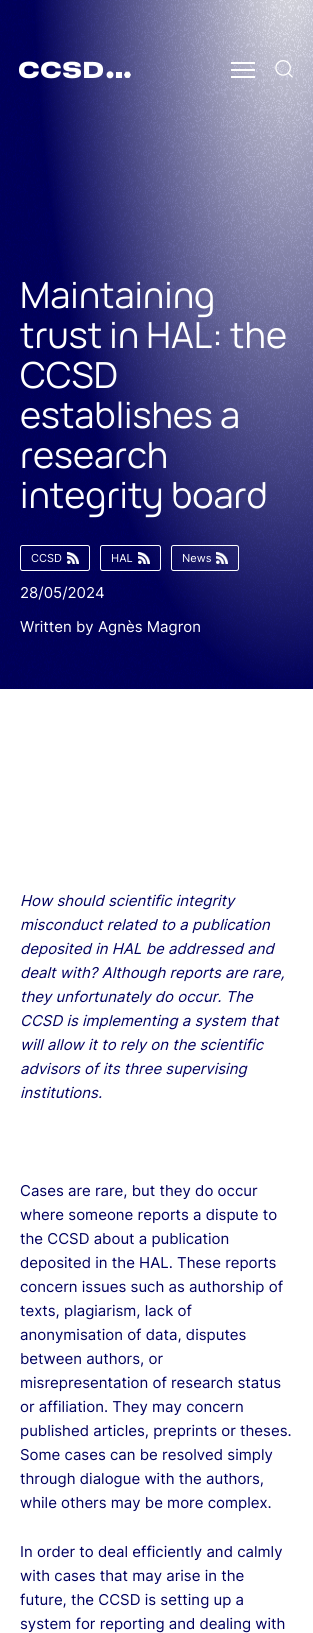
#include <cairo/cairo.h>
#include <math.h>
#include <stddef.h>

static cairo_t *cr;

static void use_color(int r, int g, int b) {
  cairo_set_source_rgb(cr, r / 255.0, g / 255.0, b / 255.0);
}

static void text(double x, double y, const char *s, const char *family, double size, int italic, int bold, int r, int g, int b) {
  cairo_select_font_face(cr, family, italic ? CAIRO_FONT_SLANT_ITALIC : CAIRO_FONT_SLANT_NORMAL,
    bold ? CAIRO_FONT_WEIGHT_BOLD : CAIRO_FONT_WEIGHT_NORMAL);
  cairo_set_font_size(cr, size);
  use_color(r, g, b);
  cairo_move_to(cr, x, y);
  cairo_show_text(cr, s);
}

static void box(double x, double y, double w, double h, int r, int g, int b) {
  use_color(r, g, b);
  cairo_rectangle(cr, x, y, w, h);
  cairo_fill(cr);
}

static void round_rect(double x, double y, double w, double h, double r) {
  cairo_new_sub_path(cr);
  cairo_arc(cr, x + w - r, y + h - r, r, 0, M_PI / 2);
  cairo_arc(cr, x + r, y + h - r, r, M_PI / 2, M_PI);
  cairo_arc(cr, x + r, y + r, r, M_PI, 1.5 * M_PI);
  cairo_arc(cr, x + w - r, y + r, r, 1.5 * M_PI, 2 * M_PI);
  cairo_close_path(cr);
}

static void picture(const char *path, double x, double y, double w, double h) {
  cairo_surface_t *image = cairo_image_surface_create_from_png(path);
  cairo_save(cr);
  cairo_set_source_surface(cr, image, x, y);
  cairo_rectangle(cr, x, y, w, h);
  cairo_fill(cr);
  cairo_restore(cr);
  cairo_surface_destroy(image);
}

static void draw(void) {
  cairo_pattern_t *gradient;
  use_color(255, 255, 255);
  cairo_paint(cr);
  gradient = cairo_pattern_create_radial(0, 0, 0, 0, 0, 1);
  cairo_pattern_set_matrix(gradient, &(cairo_matrix_t){1.0 / 258, 0, 0, 1.0 / 760, -1.0 * 291 / 258, -1.0 * -71 / 760});
  cairo_pattern_add_color_stop_rgba(gradient, 0, 1, 1, 1, 1);
  cairo_pattern_add_color_stop_rgba(gradient, 1, 0, 0, 0.373, 1);
  cairo_set_source(cr, gradient);
  cairo_pattern_destroy(gradient);
  cairo_rectangle(cr, 0, 0, 313, 689);
  cairo_fill(cr);
  picture("img_03.png", 0, 0, 313, 689);
  picture("img_01.png", 19, 61, 112, 18);
  box(231, 69, 24, 2, 255, 255, 255);
  box(231, 62, 24, 2, 255, 255, 255);
  box(231, 76, 24, 2, 255, 255, 255);
  picture("img_02.png", 275, 60, 18, 18);
  round_rect(20.5, 545.5, 69, 25, 2);
  cairo_set_line_width(cr, 1);
  cairo_stroke(cr);
  picture("img_04.png", 67, 552, 12, 12);
  round_rect(100.5, 545.5, 60, 25, 2);
  cairo_stroke(cr);
  picture("img_05.png", 138, 552, 12, 12);
  round_rect(171.5, 545.5, 67, 25, 2);
  cairo_stroke(cr);
  picture("img_06.png", 216, 552, 12, 12);
  text(20, 308, "Maintaining", "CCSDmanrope", 36, 0, 0, 255, 255, 255);
  text(20, 348, "trust in HAL: the", "CCSDmanrope", 36, 0, 0, 255, 255, 255);
  text(20, 388, "CCSD", "CCSDmanrope", 36, 0, 0, 255, 255, 255);
  text(20, 428, "establishes a", "CCSDmanrope", 36, 0, 0, 255, 255, 255);
  text(20, 468, "research", "CCSDmanrope", 36, 0, 0, 255, 255, 255);
  text(20, 508, "integrity board", "CCSDmanrope", 36, 0, 0, 255, 255, 255);
  text(31, 562, "CCSD", "Inter", 11, 0, 0, 255, 255, 255);
  text(111, 562, "HAL", "Inter", 11, 0, 0, 255, 255, 255);
  text(182, 562, "News", "Inter", 11, 0, 0, 255, 255, 255);
  text(20, 598, "28/05/2024", "Inter", 15, 0, 0, 255, 255, 255);
  text(20, 632, "Written by Agnès Magron", "Inter", 15, 0, 0, 255, 255, 255);
  text(20, 906, "How should scientific integrity", "Inter", 15, 1, 0, 0, 0, 95);
  text(20, 930, "misconduct related to a publication", "Inter", 15, 1, 0, 0, 0, 95);
  text(20, 954, "deposited in HAL be addressed and", "Inter", 15, 1, 0, 0, 0, 95);
  text(20, 978, "dealt with? Although reports are rare,", "Inter", 15, 1, 0, 0, 0, 95);
  text(20, 1002, "they unfortunately do occur. The", "Inter", 15, 1, 0, 0, 0, 95);
  text(20, 1026, "CCSD is implementing a system that", "Inter", 15, 1, 0, 0, 0, 95);
  text(20, 1050, "will allow it to rely on the scientific", "Inter", 15, 1, 0, 0, 0, 95);
  text(20, 1074, "advisors of its three supervising", "Inter", 15, 1, 0, 0, 0, 95);
  text(20, 1098, "institutions.", "Inter", 15, 1, 0, 0, 0, 95);
  text(20, 1196, "Cases are rare, but they do occur", "Inter", 15, 0, 0, 0, 0, 95);
  text(20, 1220, "where someone reports a dispute to", "Inter", 15, 0, 0, 0, 0, 95);
  text(20, 1244, "the CCSD about a publication", "Inter", 15, 0, 0, 0, 0, 95);
  text(20, 1268, "deposited in the HAL. These reports", "Inter", 15, 0, 0, 0, 0, 95);
  text(20, 1292, "concern issues such as authorship of", "Inter", 15, 0, 0, 0, 0, 95);
  text(20, 1316, "texts, plagiarism, lack of", "Inter", 15, 0, 0, 0, 0, 95);
  text(20, 1340, "anonymisation of data, disputes", "Inter", 15, 0, 0, 0, 0, 95);
  text(20, 1364, "between authors, or", "Inter", 15, 0, 0, 0, 0, 95);
  text(20, 1388, "misrepresentation of research status", "Inter", 15, 0, 0, 0, 0, 95);
  text(20, 1412, "or affiliation. They may concern", "Inter", 15, 0, 0, 0, 0, 95);
  text(20, 1436, "published articles, preprints or theses.", "Inter", 15, 0, 0, 0, 0, 95);
  text(20, 1460, "Some cases can be resolved simply", "Inter", 15, 0, 0, 0, 0, 95);
  text(20, 1484, "through dialogue with the authors,", "Inter", 15, 0, 0, 0, 0, 95);
  text(20, 1508, "while others may be more complex.", "Inter", 15, 0, 0, 0, 0, 95);
  text(20, 1557, "In order to deal efficiently and calmly", "Inter", 15, 0, 0, 0, 0, 95);
  text(20, 1581, "with cases that may arise in the", "Inter", 15, 0, 0, 0, 0, 95);
  text(20, 1605, "future, the CCSD is setting up a", "Inter", 15, 0, 0, 0, 0, 95);
  text(20, 1629, "system for reporting and dealing with", "Inter", 15, 0, 0, 0, 0, 95);
}

int main(void) {
  cairo_surface_t *surface = cairo_image_surface_create(CAIRO_FORMAT_RGB24, 313, 1633);
  cr = cairo_create(surface);
  cairo_font_options_t *options = cairo_font_options_create();
  cairo_font_options_set_hint_metrics(options, CAIRO_HINT_METRICS_OFF);
  cairo_font_options_set_hint_style(options, CAIRO_HINT_STYLE_NONE);
  cairo_set_font_options(cr, options);
  cairo_set_miter_limit(cr, 4);
  draw();
  cairo_surface_write_to_png(surface, "out.png");
  cairo_font_options_destroy(options);
  cairo_destroy(cr);
  cairo_surface_destroy(surface);
  return 0;
}
